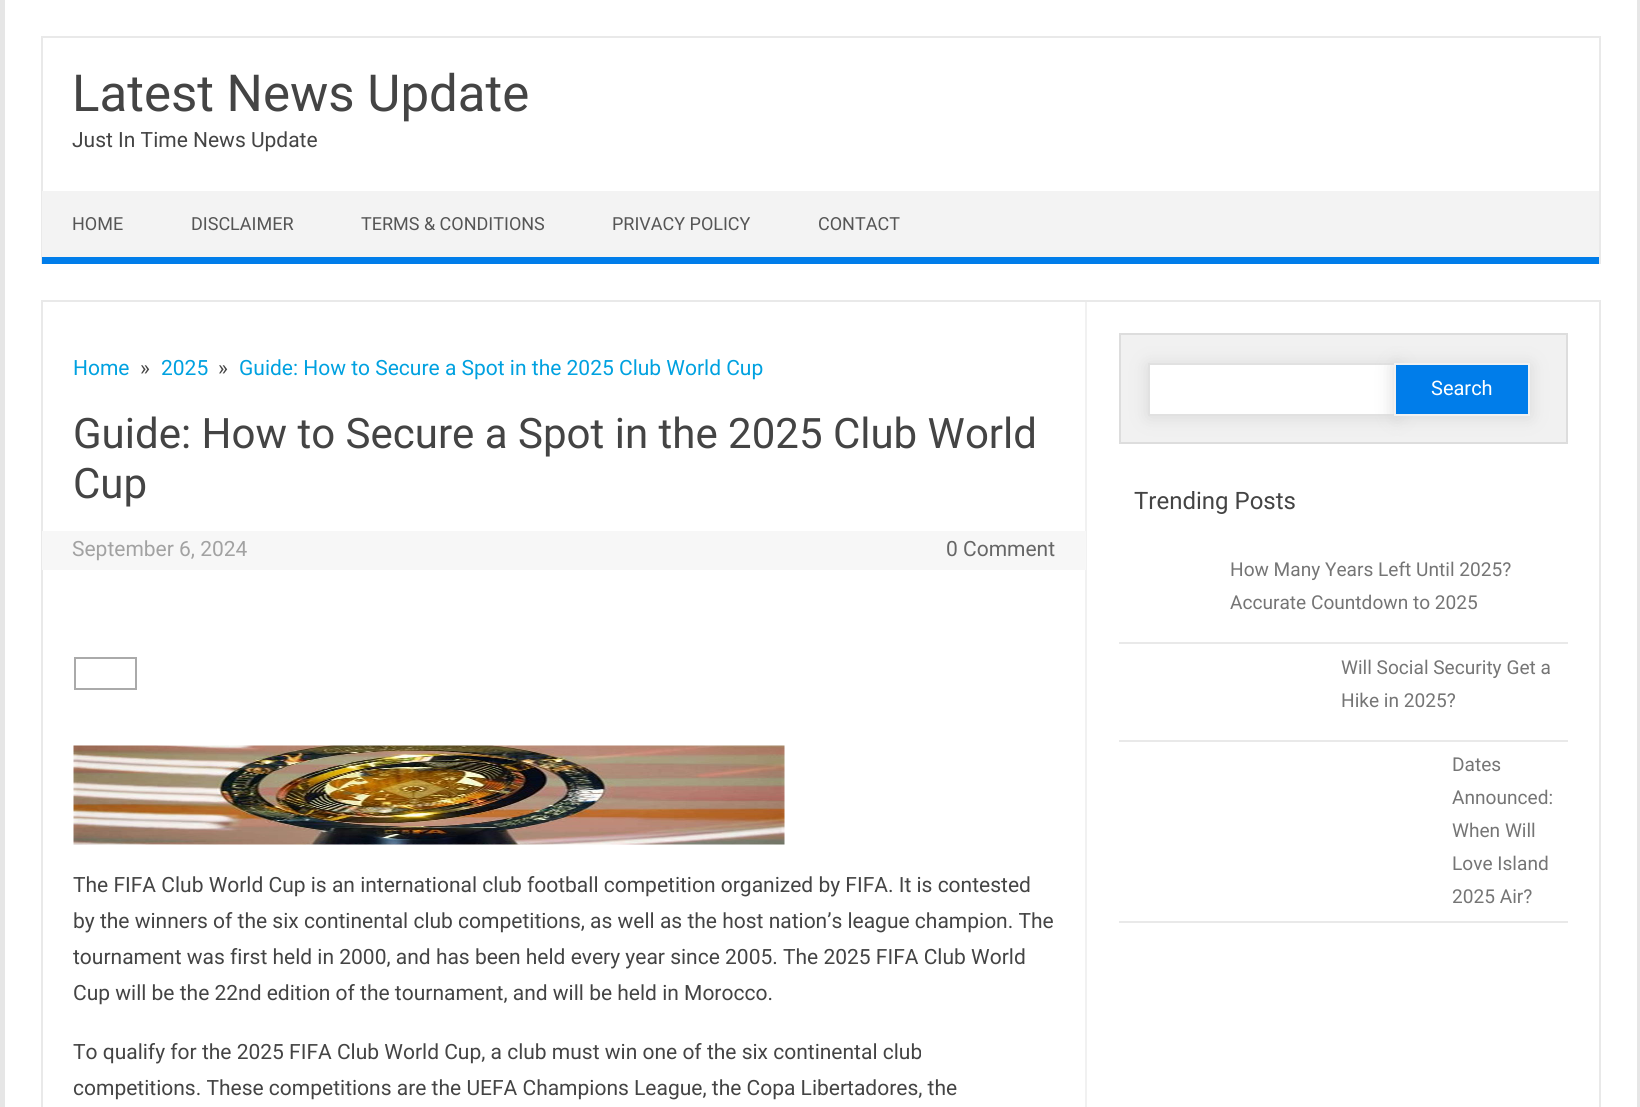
#include <cairo/cairo.h>
#include <math.h>
#include <stddef.h>

static cairo_t *cr;

static void use_color(int r, int g, int b) {
  cairo_set_source_rgb(cr, r / 255.0, g / 255.0, b / 255.0);
}

static void text(double x, double y, const char *s, const char *family, double size, int italic, int bold, int r, int g, int b) {
  cairo_select_font_face(cr, family, italic ? CAIRO_FONT_SLANT_ITALIC : CAIRO_FONT_SLANT_NORMAL,
    bold ? CAIRO_FONT_WEIGHT_BOLD : CAIRO_FONT_WEIGHT_NORMAL);
  cairo_set_font_size(cr, size);
  use_color(r, g, b);
  cairo_move_to(cr, x, y);
  cairo_show_text(cr, s);
}

static void box(double x, double y, double w, double h, int r, int g, int b) {
  use_color(r, g, b);
  cairo_rectangle(cr, x, y, w, h);
  cairo_fill(cr);
}

static void round_rect(double x, double y, double w, double h, double r) {
  cairo_new_sub_path(cr);
  cairo_arc(cr, x + w - r, y + h - r, r, 0, M_PI / 2);
  cairo_arc(cr, x + r, y + h - r, r, M_PI / 2, M_PI);
  cairo_arc(cr, x + r, y + r, r, M_PI, 1.5 * M_PI);
  cairo_arc(cr, x + w - r, y + r, r, 1.5 * M_PI, 2 * M_PI);
  cairo_close_path(cr);
}

static void shadow(double x, double y, double w, double h, double r, double blur, double alpha) {
  cairo_push_group_with_content(cr, CAIRO_CONTENT_ALPHA);
  cairo_set_operator(cr, CAIRO_OPERATOR_SOURCE);
  for (int i = 15; i >= -15 && fmin(w, h) + blur * i / 3 > 0; i -= 2) {
    double e = blur * i / 6;
    cairo_set_source_rgba(cr, 0, 0, 0, alpha * erfc((i - 1) / 8.5) / 2);
    round_rect(x - e, y - e, w + 2 * e, h + 2 * e, fmax(0, fmin(r + e + blur * .6, fmin(w, h) / 2 + e)));
    cairo_fill(cr);
  }
  cairo_pattern_t *soft = cairo_pop_group(cr);
  cairo_mask(cr, soft);
  cairo_pattern_destroy(soft);
}

static void picture(const char *path, double x, double y, double w, double h) {
  cairo_surface_t *image = cairo_image_surface_create_from_png(path);
  cairo_save(cr);
  cairo_set_source_surface(cr, image, x, y);
  cairo_rectangle(cr, x, y, w, h);
  cairo_fill(cr);
  cairo_restore(cr);
  cairo_surface_destroy(image);
}

static void draw(void) {
  use_color(230, 230, 230);
  cairo_paint(cr);
  box(5, 0, 1632, 1107, 255, 255, 255);
  box(41, 36, 1560, 2, 233, 233, 233);
  box(1599, 36, 2, 228, 233, 233, 233);
  box(41, 36, 2, 228, 233, 233, 233);
  box(42, 191, 1557, 66, 243, 243, 243);
  box(42, 257, 1557, 7, 0, 125, 234);
  cairo_rectangle(cr, 42, 301, 1558, 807);
  use_color(233, 233, 233);
  cairo_stroke(cr);
  box(1085, 302, 2, 805, 241, 241, 241);
  box(42, 531, 1044, 39, 247, 247, 247);
  cairo_rectangle(cr, 75, 658, 61, 31);
  use_color(170, 170, 170);
  cairo_stroke(cr);
  picture("img_01.png", 73, 745, 712, 100);
  use_color(241, 241, 241);
  cairo_rectangle(cr, 1120, 334, 447, 109);
  cairo_fill_preserve(cr);
  use_color(221, 221, 221);
  cairo_stroke(cr);
  use_color(217, 217, 217);
  shadow(1148, 365, 252, 52, 0, 9, 1);
  box(1150, 365, 244, 49, 255, 255, 255);
  cairo_rectangle(cr, 1149, 364, 250, 51);
  use_color(225, 225, 225);
  cairo_stroke(cr);
  use_color(217, 217, 217);
  shadow(1394, 365, 136, 52, 0, 9, 1);
  use_color(0, 125, 234);
  cairo_rectangle(cr, 1395, 364, 134, 51);
  cairo_fill_preserve(cr);
  use_color(241, 241, 241);
  cairo_stroke(cr);
  box(1119, 642, 449, 2, 233, 233, 233);
  box(1119, 740, 449, 2, 233, 233, 233);
  box(1119, 921, 449, 2, 233, 233, 233);
  text(72, 111, "Latest News Update", "Roboto", 51, 0, 0, 68, 68, 68);
  text(72, 147, "Just In Time News Update", "Roboto", 21, 0, 0, 68, 68, 68);
  text(72, 230, "HOME", "Roboto", 18, 0, 0, 85, 85, 85);
  text(191, 230, "DISCLAIMER", "Roboto", 18, 0, 0, 85, 85, 85);
  text(361, 230, "TERMS & CONDITIONS", "Roboto", 18, 0, 0, 85, 85, 85);
  text(612, 230, "PRIVACY POLICY", "Roboto", 18, 0, 0, 85, 85, 85);
  text(818, 230, "CONTACT", "Roboto", 18, 0, 0, 85, 85, 85);
  text(73, 375, "Home", "Roboto", 21, 0, 0, 0, 161, 224);
  text(140, 375, "»", "Roboto", 21, 0, 0, 68, 68, 68);
  text(161, 375, "2025", "Roboto", 21, 0, 0, 0, 161, 224);
  text(218, 375, "»", "Roboto", 21, 0, 0, 68, 68, 68);
  text(239, 375, "Guide: How to Secure a Spot in the 2025 Club World Cup", "Roboto", 21, 0, 0, 0, 161, 224);
  text(73, 448, "Guide: How to Secure a Spot in the 2025 Club World", "Roboto", 42, 0, 0, 68, 68, 68);
  text(73, 498, "Cup", "Roboto", 42, 0, 0, 68, 68, 68);
  text(72, 556, "September 6, 2024", "Roboto", 21, 0, 0, 162, 162, 162);
  text(946, 556, "0 Comment", "Roboto", 21, 0, 0, 102, 102, 102);
  text(73, 892, "The FIFA Club World Cup is an international club football competition organized by FIFA. It is contested", "Roboto", 21, 0, 0, 68, 68, 68);
  text(73, 928, "by the winners of the six continental club competitions, as well as the host nation’s league champion. The", "Roboto", 21, 0, 0, 68, 68, 68);
  text(73, 964, "tournament was first held in 2000, and has been held every year since 2005. The 2025 FIFA Club World", "Roboto", 21, 0, 0, 68, 68, 68);
  text(73, 1000, "Cup will be the 22nd edition of the tournament, and will be held in Morocco.", "Roboto", 21, 0, 0, 68, 68, 68);
  text(73, 1059, "To qualify for the 2025 FIFA Club World Cup, a club must win one of the six continental club", "Roboto", 21, 0, 0, 68, 68, 68);
  text(73, 1095, "competitions. These competitions are the UEFA Champions League, the Copa Libertadores, the", "Roboto", 21, 0, 0, 68, 68, 68);
  text(1431, 395, "Search", "Roboto", 20, 0, 0, 255, 255, 255);
  text(1134, 509, "Trending Posts", "Roboto", 24, 0, 0, 68, 68, 68);
  text(1230, 576, "How Many Years Left Until 2025?", "Roboto", 19.1, 0, 0, 117, 117, 117);
  text(1230, 609, "Accurate Countdown to 2025", "Roboto", 19.1, 0, 0, 117, 117, 117);
  text(1341, 674, "Will Social Security Get a", "Roboto", 19.1, 0, 0, 117, 117, 117);
  text(1341, 707, "Hike in 2025?", "Roboto", 19.1, 0, 0, 117, 117, 117);
  text(1452, 771, "Dates", "Roboto", 19.1, 0, 0, 117, 117, 117);
  text(1452, 804, "Announced:", "Roboto", 19.1, 0, 0, 117, 117, 117);
  text(1452, 837, "When Will", "Roboto", 19.1, 0, 0, 117, 117, 117);
  text(1452, 870, "Love Island", "Roboto", 19.1, 0, 0, 117, 117, 117);
  text(1452, 903, "2025 Air?", "Roboto", 19.1, 0, 0, 117, 117, 117);
}

int main(void) {
  cairo_surface_t *surface = cairo_image_surface_create(CAIRO_FORMAT_RGB24, 1640, 1107);
  cr = cairo_create(surface);
  cairo_font_options_t *options = cairo_font_options_create();
  cairo_font_options_set_hint_metrics(options, CAIRO_HINT_METRICS_OFF);
  cairo_font_options_set_hint_style(options, CAIRO_HINT_STYLE_NONE);
  cairo_set_font_options(cr, options);
  cairo_set_miter_limit(cr, 4);
  draw();
  cairo_surface_write_to_png(surface, "out.png");
  cairo_font_options_destroy(options);
  cairo_destroy(cr);
  cairo_surface_destroy(surface);
  return 0;
}
